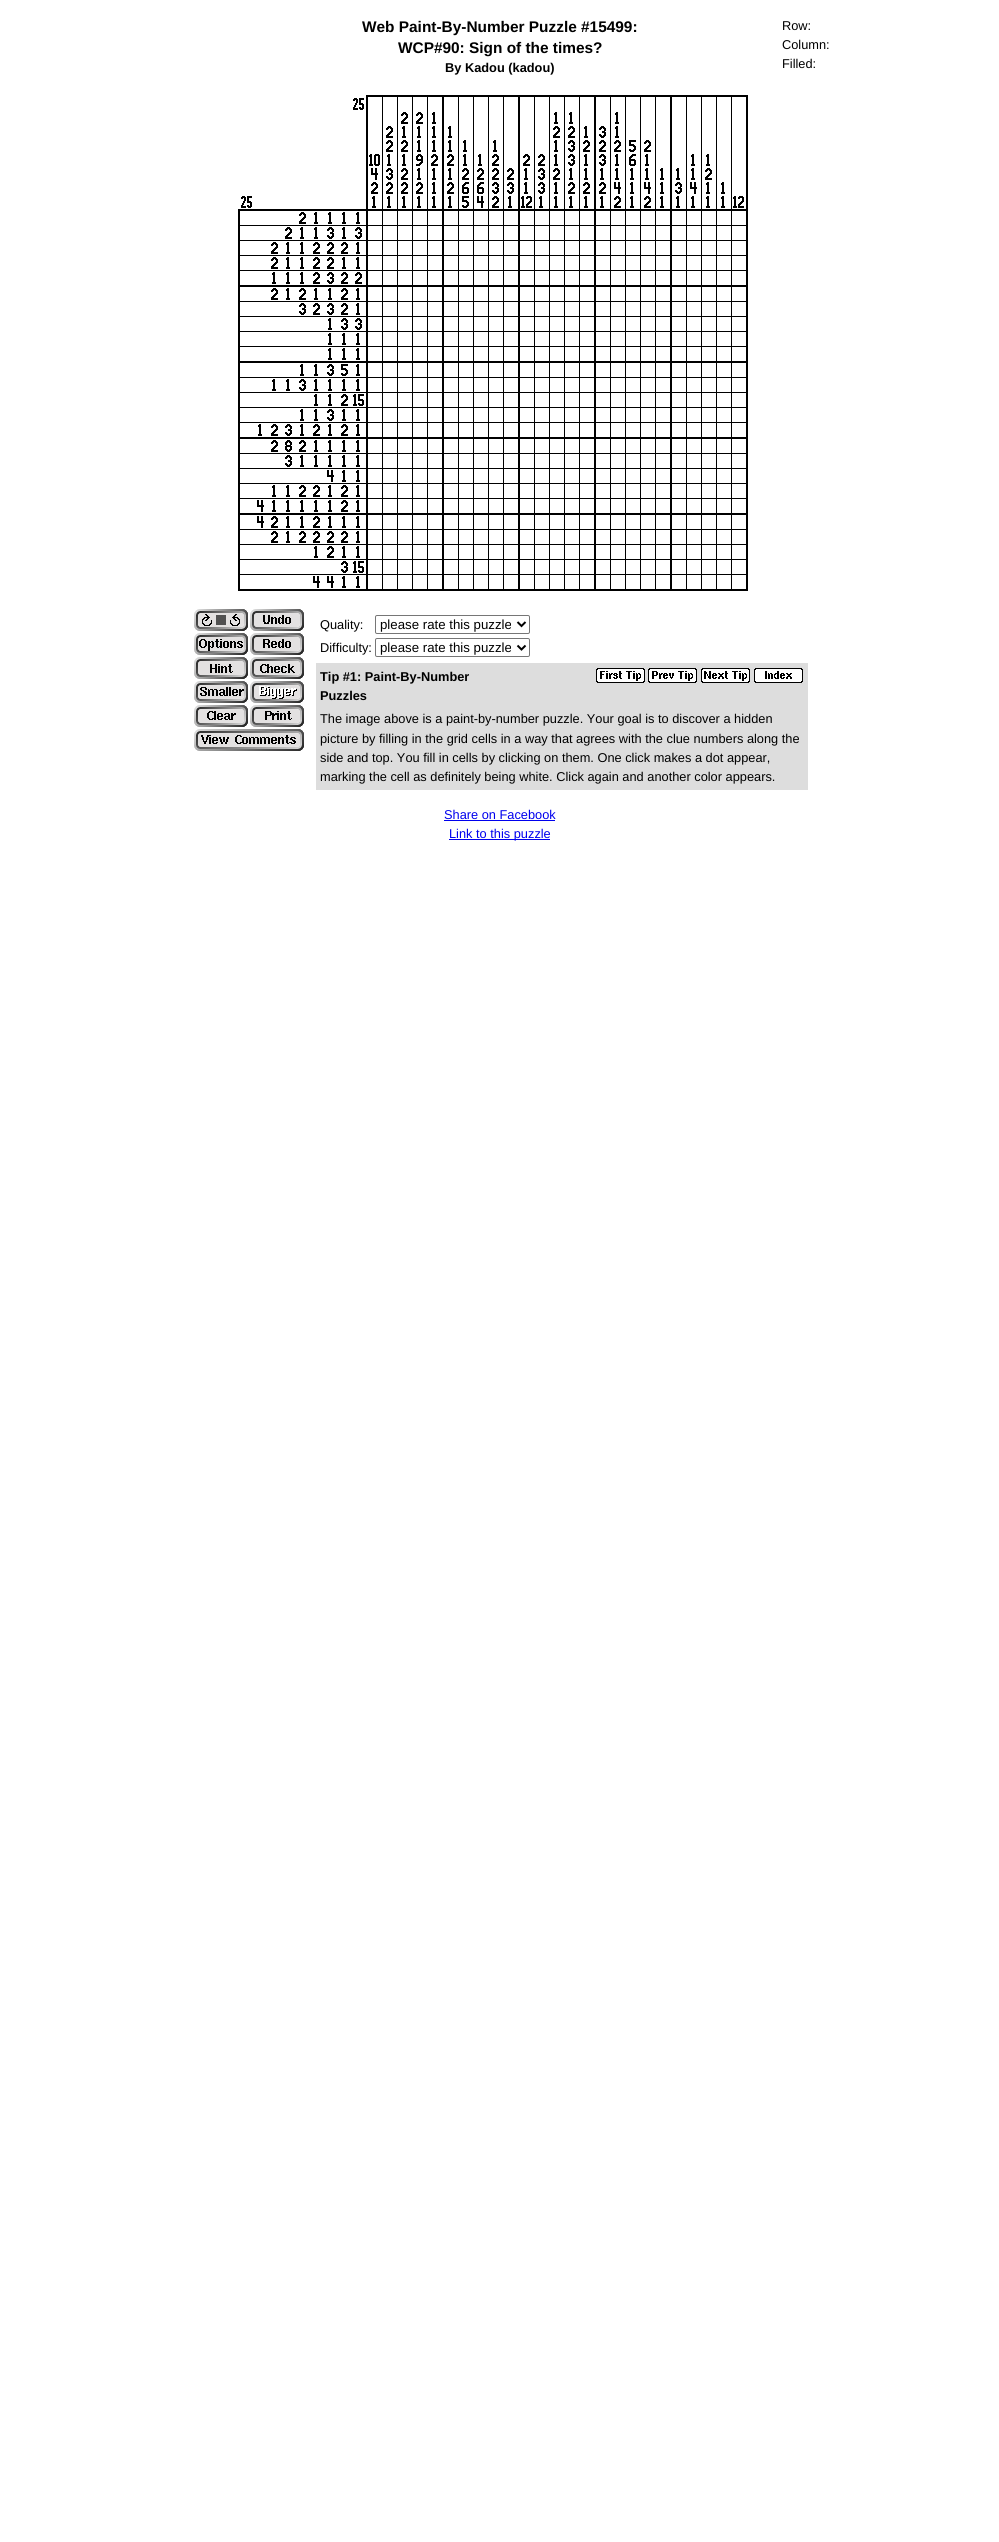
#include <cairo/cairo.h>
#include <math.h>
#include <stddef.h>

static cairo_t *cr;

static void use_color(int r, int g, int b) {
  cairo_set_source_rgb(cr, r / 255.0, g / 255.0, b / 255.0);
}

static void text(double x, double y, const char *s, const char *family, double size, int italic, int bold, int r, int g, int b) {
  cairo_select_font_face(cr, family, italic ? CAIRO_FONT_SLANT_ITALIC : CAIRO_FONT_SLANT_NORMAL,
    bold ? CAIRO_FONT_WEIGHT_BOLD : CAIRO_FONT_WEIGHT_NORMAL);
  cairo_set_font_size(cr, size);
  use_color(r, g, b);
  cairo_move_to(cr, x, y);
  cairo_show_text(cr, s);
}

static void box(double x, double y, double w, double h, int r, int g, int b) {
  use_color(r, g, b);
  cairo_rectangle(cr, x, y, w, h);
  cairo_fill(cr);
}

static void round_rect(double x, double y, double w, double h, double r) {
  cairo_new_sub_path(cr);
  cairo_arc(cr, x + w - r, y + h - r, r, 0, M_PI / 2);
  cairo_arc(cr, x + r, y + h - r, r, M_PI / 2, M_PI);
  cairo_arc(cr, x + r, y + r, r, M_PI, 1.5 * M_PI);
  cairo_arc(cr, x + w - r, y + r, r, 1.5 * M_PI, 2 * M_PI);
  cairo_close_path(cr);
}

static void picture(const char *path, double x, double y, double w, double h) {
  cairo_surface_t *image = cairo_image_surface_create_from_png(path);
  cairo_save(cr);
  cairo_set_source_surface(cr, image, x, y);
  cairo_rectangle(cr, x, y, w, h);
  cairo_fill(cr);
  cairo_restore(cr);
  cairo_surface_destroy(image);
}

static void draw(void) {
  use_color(255, 255, 255);
  cairo_paint(cr);
  picture("img_01.png", 353, 98, 11, 12);
  box(238, 209, 130, 382, 0, 0, 0);
  box(366, 95, 382, 116, 0, 0, 0);
  box(368, 97, 14, 56, 255, 255, 255);
  box(383, 97, 14, 28, 255, 255, 255);
  box(398, 97, 14, 14, 255, 255, 255);
  box(413, 97, 14, 14, 255, 255, 255);
  box(428, 97, 14, 14, 255, 255, 255);
  box(444, 97, 14, 28, 255, 255, 255);
  box(459, 97, 14, 42, 255, 255, 255);
  box(474, 97, 14, 56, 255, 255, 255);
  box(489, 97, 14, 42, 255, 255, 255);
  box(504, 97, 14, 70, 255, 255, 255);
  box(520, 97, 14, 56, 255, 255, 255);
  box(535, 97, 14, 56, 255, 255, 255);
  box(550, 97, 14, 14, 255, 255, 255);
  box(565, 97, 14, 14, 255, 255, 255);
  box(580, 97, 14, 28, 255, 255, 255);
  box(596, 97, 14, 28, 255, 255, 255);
  box(611, 97, 14, 14, 255, 255, 255);
  box(626, 97, 14, 42, 255, 255, 255);
  box(641, 97, 14, 42, 255, 255, 255);
  box(656, 97, 14, 70, 255, 255, 255);
  box(672, 97, 14, 70, 255, 255, 255);
  box(687, 97, 14, 56, 255, 255, 255);
  box(702, 97, 14, 56, 255, 255, 255);
  box(717, 97, 14, 84, 255, 255, 255);
  box(732, 97, 14, 98, 255, 255, 255);
  picture("img_02.png", 398, 111, 14, 14);
  picture("img_02.png", 413, 111, 14, 14);
  picture("img_03.png", 428, 111, 14, 14);
  picture("img_03.png", 550, 111, 14, 14);
  picture("img_03.png", 565, 111, 14, 14);
  picture("img_03.png", 611, 111, 14, 14);
  picture("img_02.png", 383, 125, 14, 14);
  picture("img_03.png", 398, 125, 14, 14);
  picture("img_03.png", 413, 125, 14, 14);
  picture("img_03.png", 428, 125, 14, 14);
  picture("img_03.png", 444, 125, 14, 14);
  picture("img_02.png", 550, 125, 14, 14);
  picture("img_02.png", 565, 125, 14, 14);
  picture("img_03.png", 580, 125, 14, 14);
  picture("img_04.png", 596, 125, 14, 14);
  picture("img_03.png", 611, 125, 14, 14);
  picture("img_02.png", 383, 139, 14, 14);
  picture("img_02.png", 398, 139, 14, 14);
  picture("img_03.png", 413, 139, 14, 14);
  picture("img_03.png", 428, 139, 14, 14);
  picture("img_03.png", 444, 139, 14, 14);
  picture("img_03.png", 459, 139, 14, 14);
  picture("img_03.png", 489, 139, 14, 14);
  picture("img_03.png", 550, 139, 14, 14);
  picture("img_04.png", 565, 139, 14, 14);
  picture("img_02.png", 580, 139, 14, 14);
  picture("img_02.png", 596, 139, 14, 14);
  picture("img_02.png", 611, 139, 14, 14);
  picture("img_05.png", 626, 139, 14, 14);
  picture("img_02.png", 641, 139, 14, 14);
  picture("img_06.png", 368, 153, 14, 14);
  picture("img_03.png", 383, 153, 14, 14);
  picture("img_03.png", 398, 153, 14, 14);
  picture("img_07.png", 413, 153, 14, 14);
  picture("img_02.png", 428, 153, 14, 14);
  picture("img_02.png", 444, 153, 14, 14);
  picture("img_03.png", 459, 153, 14, 14);
  picture("img_03.png", 474, 153, 14, 14);
  picture("img_02.png", 489, 153, 14, 14);
  picture("img_02.png", 520, 153, 14, 14);
  picture("img_02.png", 535, 153, 14, 14);
  picture("img_03.png", 550, 153, 14, 14);
  picture("img_04.png", 565, 153, 14, 14);
  picture("img_03.png", 580, 153, 14, 14);
  picture("img_04.png", 596, 153, 14, 14);
  picture("img_03.png", 611, 153, 14, 14);
  picture("img_08.png", 626, 153, 14, 14);
  picture("img_03.png", 641, 153, 14, 14);
  picture("img_03.png", 687, 153, 14, 14);
  picture("img_03.png", 702, 153, 14, 14);
  picture("img_09.png", 368, 167, 14, 14);
  picture("img_04.png", 383, 167, 14, 14);
  picture("img_02.png", 398, 167, 14, 14);
  picture("img_03.png", 413, 167, 14, 14);
  picture("img_03.png", 428, 167, 14, 14);
  picture("img_03.png", 444, 167, 14, 14);
  picture("img_02.png", 459, 167, 14, 14);
  picture("img_02.png", 474, 167, 14, 14);
  picture("img_02.png", 489, 167, 14, 14);
  picture("img_02.png", 504, 167, 14, 14);
  picture("img_03.png", 520, 167, 14, 14);
  picture("img_04.png", 535, 167, 14, 14);
  picture("img_02.png", 550, 167, 14, 14);
  picture("img_03.png", 565, 167, 14, 14);
  picture("img_03.png", 580, 167, 14, 14);
  picture("img_03.png", 596, 167, 14, 14);
  picture("img_03.png", 611, 167, 14, 14);
  picture("img_03.png", 626, 167, 14, 14);
  picture("img_03.png", 641, 167, 14, 14);
  picture("img_03.png", 656, 167, 14, 14);
  picture("img_03.png", 672, 167, 14, 14);
  picture("img_03.png", 687, 167, 14, 14);
  picture("img_02.png", 702, 167, 14, 14);
  picture("img_02.png", 368, 181, 14, 14);
  picture("img_02.png", 383, 181, 14, 14);
  picture("img_02.png", 398, 181, 14, 14);
  picture("img_02.png", 413, 181, 14, 14);
  picture("img_03.png", 428, 181, 14, 14);
  picture("img_02.png", 444, 181, 14, 14);
  picture("img_08.png", 459, 181, 14, 14);
  picture("img_08.png", 474, 181, 14, 14);
  picture("img_04.png", 489, 181, 14, 14);
  picture("img_04.png", 504, 181, 14, 14);
  picture("img_03.png", 520, 181, 14, 14);
  picture("img_04.png", 535, 181, 14, 14);
  picture("img_03.png", 550, 181, 14, 14);
  picture("img_02.png", 565, 181, 14, 14);
  picture("img_02.png", 580, 181, 14, 14);
  picture("img_02.png", 596, 181, 14, 14);
  picture("img_09.png", 611, 181, 14, 14);
  picture("img_03.png", 626, 181, 14, 14);
  picture("img_09.png", 641, 181, 14, 14);
  picture("img_03.png", 656, 181, 14, 14);
  picture("img_04.png", 672, 181, 14, 14);
  picture("img_09.png", 687, 181, 14, 14);
  picture("img_03.png", 702, 181, 14, 14);
  picture("img_03.png", 717, 181, 14, 14);
  picture("img_03.png", 368, 195, 14, 14);
  picture("img_03.png", 383, 195, 14, 14);
  picture("img_03.png", 398, 195, 14, 14);
  picture("img_03.png", 413, 195, 14, 14);
  picture("img_03.png", 428, 195, 14, 14);
  picture("img_03.png", 444, 195, 14, 14);
  picture("img_05.png", 459, 195, 14, 14);
  picture("img_09.png", 474, 195, 14, 14);
  picture("img_02.png", 489, 195, 14, 14);
  picture("img_03.png", 504, 195, 14, 14);
  picture("img_10.png", 520, 195, 14, 14);
  picture("img_03.png", 535, 195, 14, 14);
  picture("img_03.png", 550, 195, 14, 14);
  picture("img_03.png", 565, 195, 14, 14);
  picture("img_03.png", 580, 195, 14, 14);
  picture("img_03.png", 596, 195, 14, 14);
  picture("img_02.png", 611, 195, 14, 14);
  picture("img_03.png", 626, 195, 14, 14);
  picture("img_02.png", 641, 195, 14, 14);
  picture("img_03.png", 656, 195, 14, 14);
  picture("img_03.png", 672, 195, 14, 14);
  picture("img_03.png", 687, 195, 14, 14);
  picture("img_03.png", 702, 195, 14, 14);
  picture("img_03.png", 717, 195, 14, 14);
  picture("img_10.png", 732, 195, 14, 14);
  picture("img_01.png", 241, 196, 11, 12);
  box(240, 211, 56, 14, 255, 255, 255);
  picture("img_02.png", 296, 211, 14, 14);
  picture("img_03.png", 310, 211, 14, 14);
  picture("img_03.png", 324, 211, 14, 14);
  picture("img_03.png", 338, 211, 14, 14);
  picture("img_03.png", 352, 211, 14, 14);
  box(240, 226, 42, 14, 255, 255, 255);
  picture("img_02.png", 282, 226, 14, 14);
  picture("img_03.png", 296, 226, 14, 14);
  picture("img_03.png", 310, 226, 14, 14);
  picture("img_04.png", 324, 226, 14, 14);
  picture("img_03.png", 338, 226, 14, 14);
  picture("img_04.png", 352, 226, 14, 14);
  box(240, 241, 28, 14, 255, 255, 255);
  picture("img_02.png", 268, 241, 14, 14);
  picture("img_03.png", 282, 241, 14, 14);
  picture("img_03.png", 296, 241, 14, 14);
  picture("img_02.png", 310, 241, 14, 14);
  picture("img_02.png", 324, 241, 14, 14);
  picture("img_02.png", 338, 241, 14, 14);
  picture("img_03.png", 352, 241, 14, 14);
  box(240, 256, 28, 14, 255, 255, 255);
  picture("img_02.png", 268, 256, 14, 14);
  picture("img_03.png", 282, 256, 14, 14);
  picture("img_03.png", 296, 256, 14, 14);
  picture("img_02.png", 310, 256, 14, 14);
  picture("img_02.png", 324, 256, 14, 14);
  picture("img_03.png", 338, 256, 14, 14);
  picture("img_03.png", 352, 256, 14, 14);
  box(240, 271, 28, 14, 255, 255, 255);
  picture("img_03.png", 268, 271, 14, 14);
  picture("img_03.png", 282, 271, 14, 14);
  picture("img_03.png", 296, 271, 14, 14);
  picture("img_02.png", 310, 271, 14, 14);
  picture("img_04.png", 324, 271, 14, 14);
  picture("img_02.png", 338, 271, 14, 14);
  picture("img_02.png", 352, 271, 14, 14);
  box(240, 287, 28, 14, 255, 255, 255);
  picture("img_02.png", 268, 287, 14, 14);
  picture("img_03.png", 282, 287, 14, 14);
  picture("img_02.png", 296, 287, 14, 14);
  picture("img_03.png", 310, 287, 14, 14);
  picture("img_03.png", 324, 287, 14, 14);
  picture("img_02.png", 338, 287, 14, 14);
  picture("img_03.png", 352, 287, 14, 14);
  box(240, 302, 56, 14, 255, 255, 255);
  picture("img_04.png", 296, 302, 14, 14);
  picture("img_02.png", 310, 302, 14, 14);
  picture("img_04.png", 324, 302, 14, 14);
  picture("img_02.png", 338, 302, 14, 14);
  picture("img_03.png", 352, 302, 14, 14);
  box(240, 317, 84, 14, 255, 255, 255);
  picture("img_03.png", 324, 317, 14, 14);
  picture("img_04.png", 338, 317, 14, 14);
  picture("img_04.png", 352, 317, 14, 14);
  box(240, 332, 84, 14, 255, 255, 255);
  picture("img_03.png", 324, 332, 14, 14);
  picture("img_03.png", 338, 332, 14, 14);
  picture("img_03.png", 352, 332, 14, 14);
  box(240, 347, 84, 14, 255, 255, 255);
  picture("img_03.png", 324, 347, 14, 14);
  picture("img_03.png", 338, 347, 14, 14);
  picture("img_03.png", 352, 347, 14, 14);
  box(240, 363, 56, 14, 255, 255, 255);
  picture("img_03.png", 296, 363, 14, 14);
  picture("img_03.png", 310, 363, 14, 14);
  picture("img_04.png", 324, 363, 14, 14);
  picture("img_05.png", 338, 363, 14, 14);
  picture("img_03.png", 352, 363, 14, 14);
  box(240, 378, 28, 14, 255, 255, 255);
  picture("img_03.png", 268, 378, 14, 14);
  picture("img_03.png", 282, 378, 14, 14);
  picture("img_04.png", 296, 378, 14, 14);
  picture("img_03.png", 310, 378, 14, 14);
  picture("img_03.png", 324, 378, 14, 14);
  picture("img_03.png", 338, 378, 14, 14);
  picture("img_03.png", 352, 378, 14, 14);
  box(240, 393, 70, 14, 255, 255, 255);
  picture("img_03.png", 310, 393, 14, 14);
  picture("img_03.png", 324, 393, 14, 14);
  picture("img_02.png", 338, 393, 14, 14);
  picture("img_11.png", 352, 393, 14, 14);
  box(240, 408, 56, 14, 255, 255, 255);
  picture("img_03.png", 296, 408, 14, 14);
  picture("img_03.png", 310, 408, 14, 14);
  picture("img_04.png", 324, 408, 14, 14);
  picture("img_03.png", 338, 408, 14, 14);
  picture("img_03.png", 352, 408, 14, 14);
  box(240, 423, 14, 14, 255, 255, 255);
  picture("img_03.png", 254, 423, 14, 14);
  picture("img_02.png", 268, 423, 14, 14);
  picture("img_04.png", 282, 423, 14, 14);
  picture("img_03.png", 296, 423, 14, 14);
  picture("img_02.png", 310, 423, 14, 14);
  picture("img_03.png", 324, 423, 14, 14);
  picture("img_02.png", 338, 423, 14, 14);
  picture("img_03.png", 352, 423, 14, 14);
  box(240, 439, 28, 14, 255, 255, 255);
  picture("img_02.png", 268, 439, 14, 14);
  picture("img_12.png", 282, 439, 14, 14);
  picture("img_02.png", 296, 439, 14, 14);
  picture("img_03.png", 310, 439, 14, 14);
  picture("img_03.png", 324, 439, 14, 14);
  picture("img_03.png", 338, 439, 14, 14);
  picture("img_03.png", 352, 439, 14, 14);
  box(240, 454, 42, 14, 255, 255, 255);
  picture("img_04.png", 282, 454, 14, 14);
  picture("img_03.png", 296, 454, 14, 14);
  picture("img_03.png", 310, 454, 14, 14);
  picture("img_03.png", 324, 454, 14, 14);
  picture("img_03.png", 338, 454, 14, 14);
  picture("img_03.png", 352, 454, 14, 14);
  box(240, 469, 84, 14, 255, 255, 255);
  picture("img_09.png", 324, 469, 14, 14);
  picture("img_03.png", 338, 469, 14, 14);
  picture("img_03.png", 352, 469, 14, 14);
  box(240, 484, 28, 14, 255, 255, 255);
  picture("img_03.png", 268, 484, 14, 14);
  picture("img_03.png", 282, 484, 14, 14);
  picture("img_02.png", 296, 484, 14, 14);
  picture("img_02.png", 310, 484, 14, 14);
  picture("img_03.png", 324, 484, 14, 14);
  picture("img_02.png", 338, 484, 14, 14);
  picture("img_03.png", 352, 484, 14, 14);
  box(240, 499, 14, 14, 255, 255, 255);
  picture("img_09.png", 254, 499, 14, 14);
  picture("img_03.png", 268, 499, 14, 14);
  picture("img_03.png", 282, 499, 14, 14);
  picture("img_03.png", 296, 499, 14, 14);
  picture("img_03.png", 310, 499, 14, 14);
  picture("img_03.png", 324, 499, 14, 14);
  picture("img_02.png", 338, 499, 14, 14);
  picture("img_03.png", 352, 499, 14, 14);
  box(240, 515, 14, 14, 255, 255, 255);
  picture("img_09.png", 254, 515, 14, 14);
  picture("img_02.png", 268, 515, 14, 14);
  picture("img_03.png", 282, 515, 14, 14);
  picture("img_03.png", 296, 515, 14, 14);
  picture("img_02.png", 310, 515, 14, 14);
  picture("img_03.png", 324, 515, 14, 14);
  picture("img_03.png", 338, 515, 14, 14);
  picture("img_03.png", 352, 515, 14, 14);
  box(240, 530, 28, 14, 255, 255, 255);
  picture("img_02.png", 268, 530, 14, 14);
  picture("img_03.png", 282, 530, 14, 14);
  picture("img_02.png", 296, 530, 14, 14);
  picture("img_02.png", 310, 530, 14, 14);
  picture("img_02.png", 324, 530, 14, 14);
  picture("img_02.png", 338, 530, 14, 14);
  picture("img_03.png", 352, 530, 14, 14);
  box(240, 545, 70, 14, 255, 255, 255);
  picture("img_03.png", 310, 545, 14, 14);
  picture("img_02.png", 324, 545, 14, 14);
  picture("img_03.png", 338, 545, 14, 14);
  picture("img_03.png", 352, 545, 14, 14);
  box(240, 560, 98, 14, 255, 255, 255);
  picture("img_04.png", 338, 560, 14, 14);
  picture("img_11.png", 352, 560, 14, 14);
  box(240, 575, 70, 14, 255, 255, 255);
  picture("img_09.png", 310, 575, 14, 14);
  picture("img_09.png", 324, 575, 14, 14);
  picture("img_03.png", 338, 575, 14, 14);
  picture("img_03.png", 352, 575, 14, 14);
  box(368, 211, 380, 380, 0, 0, 0);
  box(368, 211, 14, 14, 255, 255, 255);
  box(383, 211, 14, 14, 255, 255, 255);
  box(398, 211, 14, 14, 255, 255, 255);
  box(413, 211, 14, 14, 255, 255, 255);
  box(428, 211, 14, 14, 255, 255, 255);
  box(444, 211, 14, 14, 255, 255, 255);
  box(459, 211, 14, 14, 255, 255, 255);
  box(474, 211, 14, 14, 255, 255, 255);
  box(489, 211, 14, 14, 255, 255, 255);
  box(504, 211, 14, 14, 255, 255, 255);
  box(520, 211, 14, 14, 255, 255, 255);
  box(535, 211, 14, 14, 255, 255, 255);
  box(550, 211, 14, 14, 255, 255, 255);
  box(565, 211, 14, 14, 255, 255, 255);
  box(580, 211, 14, 14, 255, 255, 255);
  box(596, 211, 14, 14, 255, 255, 255);
  box(611, 211, 14, 14, 255, 255, 255);
  box(626, 211, 14, 14, 255, 255, 255);
  box(641, 211, 14, 14, 255, 255, 255);
  box(656, 211, 14, 14, 255, 255, 255);
  box(672, 211, 14, 14, 255, 255, 255);
  box(687, 211, 14, 14, 255, 255, 255);
  box(702, 211, 14, 14, 255, 255, 255);
  box(717, 211, 14, 14, 255, 255, 255);
  box(732, 211, 14, 14, 255, 255, 255);
  box(368, 226, 14, 14, 255, 255, 255);
  box(383, 226, 14, 14, 255, 255, 255);
  box(398, 226, 14, 14, 255, 255, 255);
  box(413, 226, 14, 14, 255, 255, 255);
  box(428, 226, 14, 14, 255, 255, 255);
  box(444, 226, 14, 14, 255, 255, 255);
  box(459, 226, 14, 14, 255, 255, 255);
  box(474, 226, 14, 14, 255, 255, 255);
  box(489, 226, 14, 14, 255, 255, 255);
  box(504, 226, 14, 14, 255, 255, 255);
  box(520, 226, 14, 14, 255, 255, 255);
  box(535, 226, 14, 14, 255, 255, 255);
  box(550, 226, 14, 14, 255, 255, 255);
  box(565, 226, 14, 14, 255, 255, 255);
  box(580, 226, 14, 14, 255, 255, 255);
  box(596, 226, 14, 14, 255, 255, 255);
  box(611, 226, 14, 14, 255, 255, 255);
  box(626, 226, 14, 14, 255, 255, 255);
  box(641, 226, 14, 14, 255, 255, 255);
  box(656, 226, 14, 14, 255, 255, 255);
  box(672, 226, 14, 14, 255, 255, 255);
  box(687, 226, 14, 14, 255, 255, 255);
  box(702, 226, 14, 14, 255, 255, 255);
  box(717, 226, 14, 14, 255, 255, 255);
  box(732, 226, 14, 14, 255, 255, 255);
  box(368, 241, 14, 14, 255, 255, 255);
  box(383, 241, 14, 14, 255, 255, 255);
  box(398, 241, 14, 14, 255, 255, 255);
  box(413, 241, 14, 14, 255, 255, 255);
  box(428, 241, 14, 14, 255, 255, 255);
  box(444, 241, 14, 14, 255, 255, 255);
  box(459, 241, 14, 14, 255, 255, 255);
  box(474, 241, 14, 14, 255, 255, 255);
  box(489, 241, 14, 14, 255, 255, 255);
  box(504, 241, 14, 14, 255, 255, 255);
  box(520, 241, 14, 14, 255, 255, 255);
  box(535, 241, 14, 14, 255, 255, 255);
  box(550, 241, 14, 14, 255, 255, 255);
  box(565, 241, 14, 14, 255, 255, 255);
  box(580, 241, 14, 14, 255, 255, 255);
  box(596, 241, 14, 14, 255, 255, 255);
  box(611, 241, 14, 14, 255, 255, 255);
  box(626, 241, 14, 14, 255, 255, 255);
  box(641, 241, 14, 14, 255, 255, 255);
  box(656, 241, 14, 14, 255, 255, 255);
  box(672, 241, 14, 14, 255, 255, 255);
  box(687, 241, 14, 14, 255, 255, 255);
  box(702, 241, 14, 14, 255, 255, 255);
  box(717, 241, 14, 14, 255, 255, 255);
  box(732, 241, 14, 14, 255, 255, 255);
  box(368, 256, 14, 14, 255, 255, 255);
  box(383, 256, 14, 14, 255, 255, 255);
  box(398, 256, 14, 14, 255, 255, 255);
  box(413, 256, 14, 14, 255, 255, 255);
  box(428, 256, 14, 14, 255, 255, 255);
  box(444, 256, 14, 14, 255, 255, 255);
  box(459, 256, 14, 14, 255, 255, 255);
  box(474, 256, 14, 14, 255, 255, 255);
  box(489, 256, 14, 14, 255, 255, 255);
  box(504, 256, 14, 14, 255, 255, 255);
  box(520, 256, 14, 14, 255, 255, 255);
  box(535, 256, 14, 14, 255, 255, 255);
  box(550, 256, 14, 14, 255, 255, 255);
  box(565, 256, 14, 14, 255, 255, 255);
  box(580, 256, 14, 14, 255, 255, 255);
  box(596, 256, 14, 14, 255, 255, 255);
  box(611, 256, 14, 14, 255, 255, 255);
  box(626, 256, 14, 14, 255, 255, 255);
  box(641, 256, 14, 14, 255, 255, 255);
  box(656, 256, 14, 14, 255, 255, 255);
  box(672, 256, 14, 14, 255, 255, 255);
  box(687, 256, 14, 14, 255, 255, 255);
  box(702, 256, 14, 14, 255, 255, 255);
  box(717, 256, 14, 14, 255, 255, 255);
  box(732, 256, 14, 14, 255, 255, 255);
  box(368, 271, 14, 14, 255, 255, 255);
  box(383, 271, 14, 14, 255, 255, 255);
  box(398, 271, 14, 14, 255, 255, 255);
  box(413, 271, 14, 14, 255, 255, 255);
  box(428, 271, 14, 14, 255, 255, 255);
  box(444, 271, 14, 14, 255, 255, 255);
  box(459, 271, 14, 14, 255, 255, 255);
  box(474, 271, 14, 14, 255, 255, 255);
  box(489, 271, 14, 14, 255, 255, 255);
  box(504, 271, 14, 14, 255, 255, 255);
  box(520, 271, 14, 14, 255, 255, 255);
  box(535, 271, 14, 14, 255, 255, 255);
  box(550, 271, 14, 14, 255, 255, 255);
  box(565, 271, 14, 14, 255, 255, 255);
  box(580, 271, 14, 14, 255, 255, 255);
  box(596, 271, 14, 14, 255, 255, 255);
  box(611, 271, 14, 14, 255, 255, 255);
  box(626, 271, 14, 14, 255, 255, 255);
  box(641, 271, 14, 14, 255, 255, 255);
  box(656, 271, 14, 14, 255, 255, 255);
  box(672, 271, 14, 14, 255, 255, 255);
  box(687, 271, 14, 14, 255, 255, 255);
  box(702, 271, 14, 14, 255, 255, 255);
  box(717, 271, 14, 14, 255, 255, 255);
  box(732, 271, 14, 14, 255, 255, 255);
  box(368, 287, 14, 14, 255, 255, 255);
  box(383, 287, 14, 14, 255, 255, 255);
  box(398, 287, 14, 14, 255, 255, 255);
  box(413, 287, 14, 14, 255, 255, 255);
  box(428, 287, 14, 14, 255, 255, 255);
  box(444, 287, 14, 14, 255, 255, 255);
  box(459, 287, 14, 14, 255, 255, 255);
  box(474, 287, 14, 14, 255, 255, 255);
  box(489, 287, 14, 14, 255, 255, 255);
  box(504, 287, 14, 14, 255, 255, 255);
  box(520, 287, 14, 14, 255, 255, 255);
  box(535, 287, 14, 14, 255, 255, 255);
  box(550, 287, 14, 14, 255, 255, 255);
  box(565, 287, 14, 14, 255, 255, 255);
  box(580, 287, 14, 14, 255, 255, 255);
  box(596, 287, 14, 14, 255, 255, 255);
  box(611, 287, 14, 14, 255, 255, 255);
  box(626, 287, 14, 14, 255, 255, 255);
  box(641, 287, 14, 14, 255, 255, 255);
  box(656, 287, 14, 14, 255, 255, 255);
  box(672, 287, 14, 14, 255, 255, 255);
  box(687, 287, 14, 14, 255, 255, 255);
  box(702, 287, 14, 14, 255, 255, 255);
  box(717, 287, 14, 14, 255, 255, 255);
  box(732, 287, 14, 14, 255, 255, 255);
  box(368, 302, 14, 14, 255, 255, 255);
  box(383, 302, 14, 14, 255, 255, 255);
  box(398, 302, 14, 14, 255, 255, 255);
  box(413, 302, 14, 14, 255, 255, 255);
  box(428, 302, 14, 14, 255, 255, 255);
  box(444, 302, 14, 14, 255, 255, 255);
  box(459, 302, 14, 14, 255, 255, 255);
  box(474, 302, 14, 14, 255, 255, 255);
  box(489, 302, 14, 14, 255, 255, 255);
  box(504, 302, 14, 14, 255, 255, 255);
  box(520, 302, 14, 14, 255, 255, 255);
  box(535, 302, 14, 14, 255, 255, 255);
  box(550, 302, 14, 14, 255, 255, 255);
  box(565, 302, 14, 14, 255, 255, 255);
  box(580, 302, 14, 14, 255, 255, 255);
  box(596, 302, 14, 14, 255, 255, 255);
  box(611, 302, 14, 14, 255, 255, 255);
  box(626, 302, 14, 14, 255, 255, 255);
  box(641, 302, 14, 14, 255, 255, 255);
  box(656, 302, 14, 14, 255, 255, 255);
  box(672, 302, 14, 14, 255, 255, 255);
  box(687, 302, 14, 14, 255, 255, 255);
  box(702, 302, 14, 14, 255, 255, 255);
  box(717, 302, 14, 14, 255, 255, 255);
  box(732, 302, 14, 14, 255, 255, 255);
  box(368, 317, 14, 14, 255, 255, 255);
  box(383, 317, 14, 14, 255, 255, 255);
  box(398, 317, 14, 14, 255, 255, 255);
  box(413, 317, 14, 14, 255, 255, 255);
  box(428, 317, 14, 14, 255, 255, 255);
  box(444, 317, 14, 14, 255, 255, 255);
  box(459, 317, 14, 14, 255, 255, 255);
  box(474, 317, 14, 14, 255, 255, 255);
  box(489, 317, 14, 14, 255, 255, 255);
  box(504, 317, 14, 14, 255, 255, 255);
  box(520, 317, 14, 14, 255, 255, 255);
  box(535, 317, 14, 14, 255, 255, 255);
  box(550, 317, 14, 14, 255, 255, 255);
  box(565, 317, 14, 14, 255, 255, 255);
  box(580, 317, 14, 14, 255, 255, 255);
  box(596, 317, 14, 14, 255, 255, 255);
  box(611, 317, 14, 14, 255, 255, 255);
  box(626, 317, 14, 14, 255, 255, 255);
  box(641, 317, 14, 14, 255, 255, 255);
  box(656, 317, 14, 14, 255, 255, 255);
  box(672, 317, 14, 14, 255, 255, 255);
  box(687, 317, 14, 14, 255, 255, 255);
  box(702, 317, 14, 14, 255, 255, 255);
  box(717, 317, 14, 14, 255, 255, 255);
  box(732, 317, 14, 14, 255, 255, 255);
  box(368, 332, 14, 14, 255, 255, 255);
  box(383, 332, 14, 14, 255, 255, 255);
  box(398, 332, 14, 14, 255, 255, 255);
  box(413, 332, 14, 14, 255, 255, 255);
  box(428, 332, 14, 14, 255, 255, 255);
  box(444, 332, 14, 14, 255, 255, 255);
  box(459, 332, 14, 14, 255, 255, 255);
  box(474, 332, 14, 14, 255, 255, 255);
  box(489, 332, 14, 14, 255, 255, 255);
  box(504, 332, 14, 14, 255, 255, 255);
  box(520, 332, 14, 14, 255, 255, 255);
  box(535, 332, 14, 14, 255, 255, 255);
  box(550, 332, 14, 14, 255, 255, 255);
  box(565, 332, 14, 14, 255, 255, 255);
  box(580, 332, 14, 14, 255, 255, 255);
  box(596, 332, 14, 14, 255, 255, 255);
  box(611, 332, 14, 14, 255, 255, 255);
  box(626, 332, 14, 14, 255, 255, 255);
  box(641, 332, 14, 14, 255, 255, 255);
  box(656, 332, 14, 14, 255, 255, 255);
  box(672, 332, 14, 14, 255, 255, 255);
  box(687, 332, 14, 14, 255, 255, 255);
  box(702, 332, 14, 14, 255, 255, 255);
  box(717, 332, 14, 14, 255, 255, 255);
  box(732, 332, 14, 14, 255, 255, 255);
  box(368, 347, 14, 14, 255, 255, 255);
  box(383, 347, 14, 14, 255, 255, 255);
  box(398, 347, 14, 14, 255, 255, 255);
  box(413, 347, 14, 14, 255, 255, 255);
  box(428, 347, 14, 14, 255, 255, 255);
  box(444, 347, 14, 14, 255, 255, 255);
  box(459, 347, 14, 14, 255, 255, 255);
  box(474, 347, 14, 14, 255, 255, 255);
  box(489, 347, 14, 14, 255, 255, 255);
  box(504, 347, 14, 14, 255, 255, 255);
  box(520, 347, 14, 14, 255, 255, 255);
  box(535, 347, 14, 14, 255, 255, 255);
  box(550, 347, 14, 14, 255, 255, 255);
  box(565, 347, 14, 14, 255, 255, 255);
  box(580, 347, 14, 14, 255, 255, 255);
  box(596, 347, 14, 14, 255, 255, 255);
  box(611, 347, 14, 14, 255, 255, 255);
  box(626, 347, 14, 14, 255, 255, 255);
  box(641, 347, 14, 14, 255, 255, 255);
  box(656, 347, 14, 14, 255, 255, 255);
  box(672, 347, 14, 14, 255, 255, 255);
  box(687, 347, 14, 14, 255, 255, 255);
  box(702, 347, 14, 14, 255, 255, 255);
  box(717, 347, 14, 14, 255, 255, 255);
  box(732, 347, 14, 14, 255, 255, 255);
  box(368, 363, 14, 14, 255, 255, 255);
  box(383, 363, 14, 14, 255, 255, 255);
  box(398, 363, 14, 14, 255, 255, 255);
  box(413, 363, 14, 14, 255, 255, 255);
  box(428, 363, 14, 14, 255, 255, 255);
  box(444, 363, 14, 14, 255, 255, 255);
  box(459, 363, 14, 14, 255, 255, 255);
  box(474, 363, 14, 14, 255, 255, 255);
  box(489, 363, 14, 14, 255, 255, 255);
  box(504, 363, 14, 14, 255, 255, 255);
  box(520, 363, 14, 14, 255, 255, 255);
  box(535, 363, 14, 14, 255, 255, 255);
  box(550, 363, 14, 14, 255, 255, 255);
  box(565, 363, 14, 14, 255, 255, 255);
  box(580, 363, 14, 14, 255, 255, 255);
  box(596, 363, 14, 14, 255, 255, 255);
  box(611, 363, 14, 14, 255, 255, 255);
  box(626, 363, 14, 14, 255, 255, 255);
  box(641, 363, 14, 14, 255, 255, 255);
  box(656, 363, 14, 14, 255, 255, 255);
  box(672, 363, 14, 14, 255, 255, 255);
  box(687, 363, 14, 14, 255, 255, 255);
  box(702, 363, 14, 14, 255, 255, 255);
  box(717, 363, 14, 14, 255, 255, 255);
  box(732, 363, 14, 14, 255, 255, 255);
  box(368, 378, 14, 14, 255, 255, 255);
  box(383, 378, 14, 14, 255, 255, 255);
  box(398, 378, 14, 14, 255, 255, 255);
  box(413, 378, 14, 14, 255, 255, 255);
  box(428, 378, 14, 14, 255, 255, 255);
  box(444, 378, 14, 14, 255, 255, 255);
  box(459, 378, 14, 14, 255, 255, 255);
  box(474, 378, 14, 14, 255, 255, 255);
  box(489, 378, 14, 14, 255, 255, 255);
  box(504, 378, 14, 14, 255, 255, 255);
  box(520, 378, 14, 14, 255, 255, 255);
  box(535, 378, 14, 14, 255, 255, 255);
  box(550, 378, 14, 14, 255, 255, 255);
  box(565, 378, 14, 14, 255, 255, 255);
  box(580, 378, 14, 14, 255, 255, 255);
  box(596, 378, 14, 14, 255, 255, 255);
  box(611, 378, 14, 14, 255, 255, 255);
  box(626, 378, 14, 14, 255, 255, 255);
  box(641, 378, 14, 14, 255, 255, 255);
  box(656, 378, 14, 14, 255, 255, 255);
  box(672, 378, 14, 14, 255, 255, 255);
  box(687, 378, 14, 14, 255, 255, 255);
  box(702, 378, 14, 14, 255, 255, 255);
  box(717, 378, 14, 14, 255, 255, 255);
  box(732, 378, 14, 14, 255, 255, 255);
  box(368, 393, 14, 14, 255, 255, 255);
  box(383, 393, 14, 14, 255, 255, 255);
  box(398, 393, 14, 14, 255, 255, 255);
  box(413, 393, 14, 14, 255, 255, 255);
  box(428, 393, 14, 14, 255, 255, 255);
  box(444, 393, 14, 14, 255, 255, 255);
  box(459, 393, 14, 14, 255, 255, 255);
  box(474, 393, 14, 14, 255, 255, 255);
  box(489, 393, 14, 14, 255, 255, 255);
  box(504, 393, 14, 14, 255, 255, 255);
  box(520, 393, 14, 14, 255, 255, 255);
  box(535, 393, 14, 14, 255, 255, 255);
  box(550, 393, 14, 14, 255, 255, 255);
  box(565, 393, 14, 14, 255, 255, 255);
  box(580, 393, 14, 14, 255, 255, 255);
  box(596, 393, 14, 14, 255, 255, 255);
  box(611, 393, 14, 14, 255, 255, 255);
  box(626, 393, 14, 14, 255, 255, 255);
  box(641, 393, 14, 14, 255, 255, 255);
  box(656, 393, 14, 14, 255, 255, 255);
  box(672, 393, 14, 14, 255, 255, 255);
  box(687, 393, 14, 14, 255, 255, 255);
  box(702, 393, 14, 14, 255, 255, 255);
  box(717, 393, 14, 14, 255, 255, 255);
  box(732, 393, 14, 14, 255, 255, 255);
  box(368, 408, 14, 14, 255, 255, 255);
  box(383, 408, 14, 14, 255, 255, 255);
  box(398, 408, 14, 14, 255, 255, 255);
  box(413, 408, 14, 14, 255, 255, 255);
  box(428, 408, 14, 14, 255, 255, 255);
  box(444, 408, 14, 14, 255, 255, 255);
  box(459, 408, 14, 14, 255, 255, 255);
  box(474, 408, 14, 14, 255, 255, 255);
  box(489, 408, 14, 14, 255, 255, 255);
  box(504, 408, 14, 14, 255, 255, 255);
  box(520, 408, 14, 14, 255, 255, 255);
  box(535, 408, 14, 14, 255, 255, 255);
  box(550, 408, 14, 14, 255, 255, 255);
  box(565, 408, 14, 14, 255, 255, 255);
  box(580, 408, 14, 14, 255, 255, 255);
  box(596, 408, 14, 14, 255, 255, 255);
  box(611, 408, 14, 14, 255, 255, 255);
  box(626, 408, 14, 14, 255, 255, 255);
  box(641, 408, 14, 14, 255, 255, 255);
  box(656, 408, 14, 14, 255, 255, 255);
  box(672, 408, 14, 14, 255, 255, 255);
  box(687, 408, 14, 14, 255, 255, 255);
  box(702, 408, 14, 14, 255, 255, 255);
  box(717, 408, 14, 14, 255, 255, 255);
  box(732, 408, 14, 14, 255, 255, 255);
  box(368, 423, 14, 14, 255, 255, 255);
  box(383, 423, 14, 14, 255, 255, 255);
  box(398, 423, 14, 14, 255, 255, 255);
  box(413, 423, 14, 14, 255, 255, 255);
  box(428, 423, 14, 14, 255, 255, 255);
  box(444, 423, 14, 14, 255, 255, 255);
  box(459, 423, 14, 14, 255, 255, 255);
  box(474, 423, 14, 14, 255, 255, 255);
  box(489, 423, 14, 14, 255, 255, 255);
  box(504, 423, 14, 14, 255, 255, 255);
  box(520, 423, 14, 14, 255, 255, 255);
  box(535, 423, 14, 14, 255, 255, 255);
  box(550, 423, 14, 14, 255, 255, 255);
  box(565, 423, 14, 14, 255, 255, 255);
  box(580, 423, 14, 14, 255, 255, 255);
  box(596, 423, 14, 14, 255, 255, 255);
  box(611, 423, 14, 14, 255, 255, 255);
  box(626, 423, 14, 14, 255, 255, 255);
  box(641, 423, 14, 14, 255, 255, 255);
  box(656, 423, 14, 14, 255, 255, 255);
  box(672, 423, 14, 14, 255, 255, 255);
  box(687, 423, 14, 14, 255, 255, 255);
  box(702, 423, 14, 14, 255, 255, 255);
  box(717, 423, 14, 14, 255, 255, 255);
  box(732, 423, 14, 14, 255, 255, 255);
  box(368, 439, 14, 14, 255, 255, 255);
  box(383, 439, 14, 14, 255, 255, 255);
  box(398, 439, 14, 14, 255, 255, 255);
  box(413, 439, 14, 14, 255, 255, 255);
  box(428, 439, 14, 14, 255, 255, 255);
  box(444, 439, 14, 14, 255, 255, 255);
  box(459, 439, 14, 14, 255, 255, 255);
  box(474, 439, 14, 14, 255, 255, 255);
  box(489, 439, 14, 14, 255, 255, 255);
  box(504, 439, 14, 14, 255, 255, 255);
  box(520, 439, 14, 14, 255, 255, 255);
  box(535, 439, 14, 14, 255, 255, 255);
  box(550, 439, 14, 14, 255, 255, 255);
  box(565, 439, 14, 14, 255, 255, 255);
  box(580, 439, 14, 14, 255, 255, 255);
  box(596, 439, 14, 14, 255, 255, 255);
  box(611, 439, 14, 14, 255, 255, 255);
  box(626, 439, 14, 14, 255, 255, 255);
  box(641, 439, 14, 14, 255, 255, 255);
  box(656, 439, 14, 14, 255, 255, 255);
  box(672, 439, 14, 14, 255, 255, 255);
  box(687, 439, 14, 14, 255, 255, 255);
  box(702, 439, 14, 14, 255, 255, 255);
  box(717, 439, 14, 14, 255, 255, 255);
  box(732, 439, 14, 14, 255, 255, 255);
  box(368, 454, 14, 14, 255, 255, 255);
  box(383, 454, 14, 14, 255, 255, 255);
  box(398, 454, 14, 14, 255, 255, 255);
  box(413, 454, 14, 14, 255, 255, 255);
  box(428, 454, 14, 14, 255, 255, 255);
  box(444, 454, 14, 14, 255, 255, 255);
  box(459, 454, 14, 14, 255, 255, 255);
  box(474, 454, 14, 14, 255, 255, 255);
  box(489, 454, 14, 14, 255, 255, 255);
  box(504, 454, 14, 14, 255, 255, 255);
  box(520, 454, 14, 14, 255, 255, 255);
  box(535, 454, 14, 14, 255, 255, 255);
  box(550, 454, 14, 14, 255, 255, 255);
  box(565, 454, 14, 14, 255, 255, 255);
  box(580, 454, 14, 14, 255, 255, 255);
  box(596, 454, 14, 14, 255, 255, 255);
  box(611, 454, 14, 14, 255, 255, 255);
  box(626, 454, 14, 14, 255, 255, 255);
  box(641, 454, 14, 14, 255, 255, 255);
  box(656, 454, 14, 14, 255, 255, 255);
  box(672, 454, 14, 14, 255, 255, 255);
  box(687, 454, 14, 14, 255, 255, 255);
  box(702, 454, 14, 14, 255, 255, 255);
  box(717, 454, 14, 14, 255, 255, 255);
  box(732, 454, 14, 14, 255, 255, 255);
  box(368, 469, 14, 14, 255, 255, 255);
  box(383, 469, 14, 14, 255, 255, 255);
  box(398, 469, 14, 14, 255, 255, 255);
  box(413, 469, 14, 14, 255, 255, 255);
  box(428, 469, 14, 14, 255, 255, 255);
  box(444, 469, 14, 14, 255, 255, 255);
  box(459, 469, 14, 14, 255, 255, 255);
  box(474, 469, 14, 14, 255, 255, 255);
  box(489, 469, 14, 14, 255, 255, 255);
  box(504, 469, 14, 14, 255, 255, 255);
  box(520, 469, 14, 14, 255, 255, 255);
  box(535, 469, 14, 14, 255, 255, 255);
  box(550, 469, 14, 14, 255, 255, 255);
  box(565, 469, 14, 14, 255, 255, 255);
  box(580, 469, 14, 14, 255, 255, 255);
  box(596, 469, 14, 14, 255, 255, 255);
  box(611, 469, 14, 14, 255, 255, 255);
  box(626, 469, 14, 14, 255, 255, 255);
  box(641, 469, 14, 14, 255, 255, 255);
  box(656, 469, 14, 14, 255, 255, 255);
  box(672, 469, 14, 14, 255, 255, 255);
  box(687, 469, 14, 14, 255, 255, 255);
  box(702, 469, 14, 14, 255, 255, 255);
  box(717, 469, 14, 14, 255, 255, 255);
  box(732, 469, 14, 14, 255, 255, 255);
  box(368, 484, 14, 14, 255, 255, 255);
  box(383, 484, 14, 14, 255, 255, 255);
  box(398, 484, 14, 14, 255, 255, 255);
  box(413, 484, 14, 14, 255, 255, 255);
  box(428, 484, 14, 14, 255, 255, 255);
  box(444, 484, 14, 14, 255, 255, 255);
  box(459, 484, 14, 14, 255, 255, 255);
  box(474, 484, 14, 14, 255, 255, 255);
  box(489, 484, 14, 14, 255, 255, 255);
  box(504, 484, 14, 14, 255, 255, 255);
  box(520, 484, 14, 14, 255, 255, 255);
  box(535, 484, 14, 14, 255, 255, 255);
  box(550, 484, 14, 14, 255, 255, 255);
  box(565, 484, 14, 14, 255, 255, 255);
  box(580, 484, 14, 14, 255, 255, 255);
  box(596, 484, 14, 14, 255, 255, 255);
  box(611, 484, 14, 14, 255, 255, 255);
  box(626, 484, 14, 14, 255, 255, 255);
  box(641, 484, 14, 14, 255, 255, 255);
  box(656, 484, 14, 14, 255, 255, 255);
  box(672, 484, 14, 14, 255, 255, 255);
  box(687, 484, 14, 14, 255, 255, 255);
  box(702, 484, 14, 14, 255, 255, 255);
  box(717, 484, 14, 14, 255, 255, 255);
  box(732, 484, 14, 14, 255, 255, 255);
  box(368, 499, 14, 14, 255, 255, 255);
  box(383, 499, 14, 14, 255, 255, 255);
  box(398, 499, 14, 14, 255, 255, 255);
  box(413, 499, 14, 14, 255, 255, 255);
  box(428, 499, 14, 14, 255, 255, 255);
  box(444, 499, 14, 14, 255, 255, 255);
  box(459, 499, 14, 14, 255, 255, 255);
  box(474, 499, 14, 14, 255, 255, 255);
  box(489, 499, 14, 14, 255, 255, 255);
  box(504, 499, 14, 14, 255, 255, 255);
  box(520, 499, 14, 14, 255, 255, 255);
  box(535, 499, 14, 14, 255, 255, 255);
  box(550, 499, 14, 14, 255, 255, 255);
  box(565, 499, 14, 14, 255, 255, 255);
  box(580, 499, 14, 14, 255, 255, 255);
  box(596, 499, 14, 14, 255, 255, 255);
  box(611, 499, 14, 14, 255, 255, 255);
  box(626, 499, 14, 14, 255, 255, 255);
  box(641, 499, 14, 14, 255, 255, 255);
  box(656, 499, 14, 14, 255, 255, 255);
  box(672, 499, 14, 14, 255, 255, 255);
  box(687, 499, 14, 14, 255, 255, 255);
  box(702, 499, 14, 14, 255, 255, 255);
  box(717, 499, 14, 14, 255, 255, 255);
  box(732, 499, 14, 14, 255, 255, 255);
  box(368, 515, 14, 14, 255, 255, 255);
  box(383, 515, 14, 14, 255, 255, 255);
  box(398, 515, 14, 14, 255, 255, 255);
  box(413, 515, 14, 14, 255, 255, 255);
  box(428, 515, 14, 14, 255, 255, 255);
  box(444, 515, 14, 14, 255, 255, 255);
  box(459, 515, 14, 14, 255, 255, 255);
  box(474, 515, 14, 14, 255, 255, 255);
  box(489, 515, 14, 14, 255, 255, 255);
  box(504, 515, 14, 14, 255, 255, 255);
  box(520, 515, 14, 14, 255, 255, 255);
  box(535, 515, 14, 14, 255, 255, 255);
  box(550, 515, 14, 14, 255, 255, 255);
  box(565, 515, 14, 14, 255, 255, 255);
  box(580, 515, 14, 14, 255, 255, 255);
  box(596, 515, 14, 14, 255, 255, 255);
  box(611, 515, 14, 14, 255, 255, 255);
  box(626, 515, 14, 14, 255, 255, 255);
  box(641, 515, 14, 14, 255, 255, 255);
  box(656, 515, 14, 14, 255, 255, 255);
  box(672, 515, 14, 14, 255, 255, 255);
  box(687, 515, 14, 14, 255, 255, 255);
  box(702, 515, 14, 14, 255, 255, 255);
  box(717, 515, 14, 14, 255, 255, 255);
  box(732, 515, 14, 14, 255, 255, 255);
  box(368, 530, 14, 14, 255, 255, 255);
  box(383, 530, 14, 14, 255, 255, 255);
  box(398, 530, 14, 14, 255, 255, 255);
  box(413, 530, 14, 14, 255, 255, 255);
  box(428, 530, 14, 14, 255, 255, 255);
  box(444, 530, 14, 14, 255, 255, 255);
  box(459, 530, 14, 14, 255, 255, 255);
  box(474, 530, 14, 14, 255, 255, 255);
  box(489, 530, 14, 14, 255, 255, 255);
  box(504, 530, 14, 14, 255, 255, 255);
  box(520, 530, 14, 14, 255, 255, 255);
  box(535, 530, 14, 14, 255, 255, 255);
  box(550, 530, 14, 14, 255, 255, 255);
  box(565, 530, 14, 14, 255, 255, 255);
  box(580, 530, 14, 14, 255, 255, 255);
  box(596, 530, 14, 14, 255, 255, 255);
  box(611, 530, 14, 14, 255, 255, 255);
  box(626, 530, 14, 14, 255, 255, 255);
  box(641, 530, 14, 14, 255, 255, 255);
  box(656, 530, 14, 14, 255, 255, 255);
  box(672, 530, 14, 14, 255, 255, 255);
  box(687, 530, 14, 14, 255, 255, 255);
  box(702, 530, 14, 14, 255, 255, 255);
  box(717, 530, 14, 14, 255, 255, 255);
  box(732, 530, 14, 14, 255, 255, 255);
  box(368, 545, 14, 14, 255, 255, 255);
  box(383, 545, 14, 14, 255, 255, 255);
  box(398, 545, 14, 14, 255, 255, 255);
  box(413, 545, 14, 14, 255, 255, 255);
  box(428, 545, 14, 14, 255, 255, 255);
  box(444, 545, 14, 14, 255, 255, 255);
  box(459, 545, 14, 14, 255, 255, 255);
  box(474, 545, 14, 14, 255, 255, 255);
  box(489, 545, 14, 14, 255, 255, 255);
  box(504, 545, 14, 14, 255, 255, 255);
  box(520, 545, 14, 14, 255, 255, 255);
  box(535, 545, 14, 14, 255, 255, 255);
  box(550, 545, 14, 14, 255, 255, 255);
  box(565, 545, 14, 14, 255, 255, 255);
  box(580, 545, 14, 14, 255, 255, 255);
  box(596, 545, 14, 14, 255, 255, 255);
  box(611, 545, 14, 14, 255, 255, 255);
  box(626, 545, 14, 14, 255, 255, 255);
  box(641, 545, 14, 14, 255, 255, 255);
  box(656, 545, 14, 14, 255, 255, 255);
  box(672, 545, 14, 14, 255, 255, 255);
  box(687, 545, 14, 14, 255, 255, 255);
  box(702, 545, 14, 14, 255, 255, 255);
  box(717, 545, 14, 14, 255, 255, 255);
  box(732, 545, 14, 14, 255, 255, 255);
  box(368, 560, 14, 14, 255, 255, 255);
  box(383, 560, 14, 14, 255, 255, 255);
  box(398, 560, 14, 14, 255, 255, 255);
  box(413, 560, 14, 14, 255, 255, 255);
  box(428, 560, 14, 14, 255, 255, 255);
  box(444, 560, 14, 14, 255, 255, 255);
  box(459, 560, 14, 14, 255, 255, 255);
  box(474, 560, 14, 14, 255, 255, 255);
  box(489, 560, 14, 14, 255, 255, 255);
  box(504, 560, 14, 14, 255, 255, 255);
  box(520, 560, 14, 14, 255, 255, 255);
  box(535, 560, 14, 14, 255, 255, 255);
  box(550, 560, 14, 14, 255, 255, 255);
  box(565, 560, 14, 14, 255, 255, 255);
  box(580, 560, 14, 14, 255, 255, 255);
  box(596, 560, 14, 14, 255, 255, 255);
  box(611, 560, 14, 14, 255, 255, 255);
  box(626, 560, 14, 14, 255, 255, 255);
  box(641, 560, 14, 14, 255, 255, 255);
  box(656, 560, 14, 14, 255, 255, 255);
  box(672, 560, 14, 14, 255, 255, 255);
  box(687, 560, 14, 14, 255, 255, 255);
  box(702, 560, 14, 14, 255, 255, 255);
  box(717, 560, 14, 14, 255, 255, 255);
  box(732, 560, 14, 14, 255, 255, 255);
  box(368, 575, 14, 14, 255, 255, 255);
  box(383, 575, 14, 14, 255, 255, 255);
  box(398, 575, 14, 14, 255, 255, 255);
  box(413, 575, 14, 14, 255, 255, 255);
  box(428, 575, 14, 14, 255, 255, 255);
  box(444, 575, 14, 14, 255, 255, 255);
  box(459, 575, 14, 14, 255, 255, 255);
  box(474, 575, 14, 14, 255, 255, 255);
  box(489, 575, 14, 14, 255, 255, 255);
  box(504, 575, 14, 14, 255, 255, 255);
  box(520, 575, 14, 14, 255, 255, 255);
  box(535, 575, 14, 14, 255, 255, 255);
  box(550, 575, 14, 14, 255, 255, 255);
  box(565, 575, 14, 14, 255, 255, 255);
  box(580, 575, 14, 14, 255, 255, 255);
  box(596, 575, 14, 14, 255, 255, 255);
  box(611, 575, 14, 14, 255, 255, 255);
  box(626, 575, 14, 14, 255, 255, 255);
  box(641, 575, 14, 14, 255, 255, 255);
  box(656, 575, 14, 14, 255, 255, 255);
  box(672, 575, 14, 14, 255, 255, 255);
  box(687, 575, 14, 14, 255, 255, 255);
  box(702, 575, 14, 14, 255, 255, 255);
  box(717, 575, 14, 14, 255, 255, 255);
  box(732, 575, 14, 14, 255, 255, 255);
  picture("img_13.png", 194, 609, 54, 22);
  picture("img_14.png", 250, 609, 54, 22);
  picture("img_15.png", 202, 614, 10, 12);
  box(216, 615, 10, 10, 81, 81, 81);
  picture("img_16.png", 230, 614, 10, 12);
  picture("img_17.png", 194, 633, 54, 22);
  picture("img_18.png", 250, 633, 54, 22);
  picture("img_19.png", 194, 657, 54, 22);
  picture("img_20.png", 250, 657, 54, 22);
  picture("img_21.png", 194, 681, 54, 22);
  picture("img_22.png", 250, 681, 54, 22);
  picture("img_23.png", 194, 705, 54, 22);
  picture("img_24.png", 250, 705, 54, 22);
  picture("img_25.png", 194, 729, 110, 22);
  round_rect(375.5, 615.5, 154, 18, 1.5);
  use_color(118, 118, 118);
  cairo_set_line_width(cr, 1);
  cairo_stroke(cr);
  cairo_new_path(cr);
  cairo_move_to(cr, 517.5, 622);
  cairo_line_to(cr, 521.5, 626);
  cairo_line_to(cr, 525.5, 622);
  use_color(0, 0, 0);
  cairo_set_line_width(cr, 2);
  cairo_stroke(cr);
  round_rect(375.5, 638.5, 154, 18, 1.5);
  use_color(118, 118, 118);
  cairo_set_line_width(cr, 1);
  cairo_stroke(cr);
  cairo_new_path(cr);
  cairo_move_to(cr, 517.5, 645.5);
  cairo_line_to(cr, 521.5, 649.5);
  cairo_line_to(cr, 525.5, 645.5);
  use_color(0, 0, 0);
  cairo_set_line_width(cr, 2);
  cairo_stroke(cr);
  box(316, 663, 492, 127, 221, 221, 221);
  picture("img_26.png", 596, 668, 49, 15);
  picture("img_27.png", 648, 668, 49, 15);
  picture("img_28.png", 701, 668, 49, 15);
  picture("img_29.png", 754, 668, 49, 15);
  box(444, 820, 111, 1, 0, 0, 238);
  box(449, 839, 101, 1, 0, 0, 238);
  text(362, 32, "Web Paint-By-Number Puzzle #15499:", "Liberation Sans", 15.4, 0, 1, 0, 0, 0);
  text(398, 53, "WCP#90: Sign of the times?", "Liberation Sans", 15.4, 0, 1, 0, 0, 0);
  text(445, 72, "By Kadou (kadou)", "Liberation Sans", 12.8, 0, 1, 0, 0, 0);
  text(782, 30, "Row:", "Liberation Sans", 12.8, 0, 0, 0, 0, 0);
  text(782, 49, "Column:", "Liberation Sans", 12.8, 0, 0, 0, 0, 0);
  text(782, 68, "Filled:", "Liberation Sans", 12.8, 0, 0, 0, 0, 0);
  text(320, 629, "Quality:", "Liberation Sans", 12.8, 0, 0, 0, 0, 0);
  text(380, 629, "please rate this puzzle", "Liberation Sans", 13.25, 0, 0, 0, 0, 0);
  text(320, 652, "Difficulty:", "Liberation Sans", 12.8, 0, 0, 0, 0, 0);
  text(380, 652, "please rate this puzzle", "Liberation Sans", 13.25, 0, 0, 0, 0, 0);
  text(320, 681, "Tip #1: Paint-By-Number", "Liberation Sans", 12.8, 0, 1, 0, 0, 0);
  text(320, 700, "Puzzles", "Liberation Sans", 12.8, 0, 1, 0, 0, 0);
  text(320, 723, "The image above is a paint-by-number puzzle. Your goal is to discover a hidden", "Liberation Sans", 12.8, 0, 0, 0, 0, 0);
  text(320, 743, "picture by filling in the grid cells in a way that agrees with the clue numbers along the", "Liberation Sans", 12.8, 0, 0, 0, 0, 0);
  text(320, 762, "side and top. You fill in cells by clicking on them. One click makes a dot appear,", "Liberation Sans", 12.8, 0, 0, 0, 0, 0);
  text(320, 781, "marking the cell as definitely being white. Click again and another color appears.", "Liberation Sans", 12.8, 0, 0, 0, 0, 0);
  text(444, 819, "Share on Facebook", "Liberation Sans", 12.8, 0, 0, 0, 0, 238);
  text(449, 838, "Link to this puzzle", "Liberation Sans", 12.8, 0, 0, 0, 0, 238);
}

int main(void) {
  cairo_surface_t *surface = cairo_image_surface_create(CAIRO_FORMAT_RGB24, 999, 2542);
  cr = cairo_create(surface);
  cairo_font_options_t *options = cairo_font_options_create();
  cairo_font_options_set_hint_metrics(options, CAIRO_HINT_METRICS_OFF);
  cairo_font_options_set_hint_style(options, CAIRO_HINT_STYLE_NONE);
  cairo_set_font_options(cr, options);
  cairo_set_miter_limit(cr, 4);
  draw();
  cairo_surface_write_to_png(surface, "out.png");
  cairo_font_options_destroy(options);
  cairo_destroy(cr);
  cairo_surface_destroy(surface);
  return 0;
}
